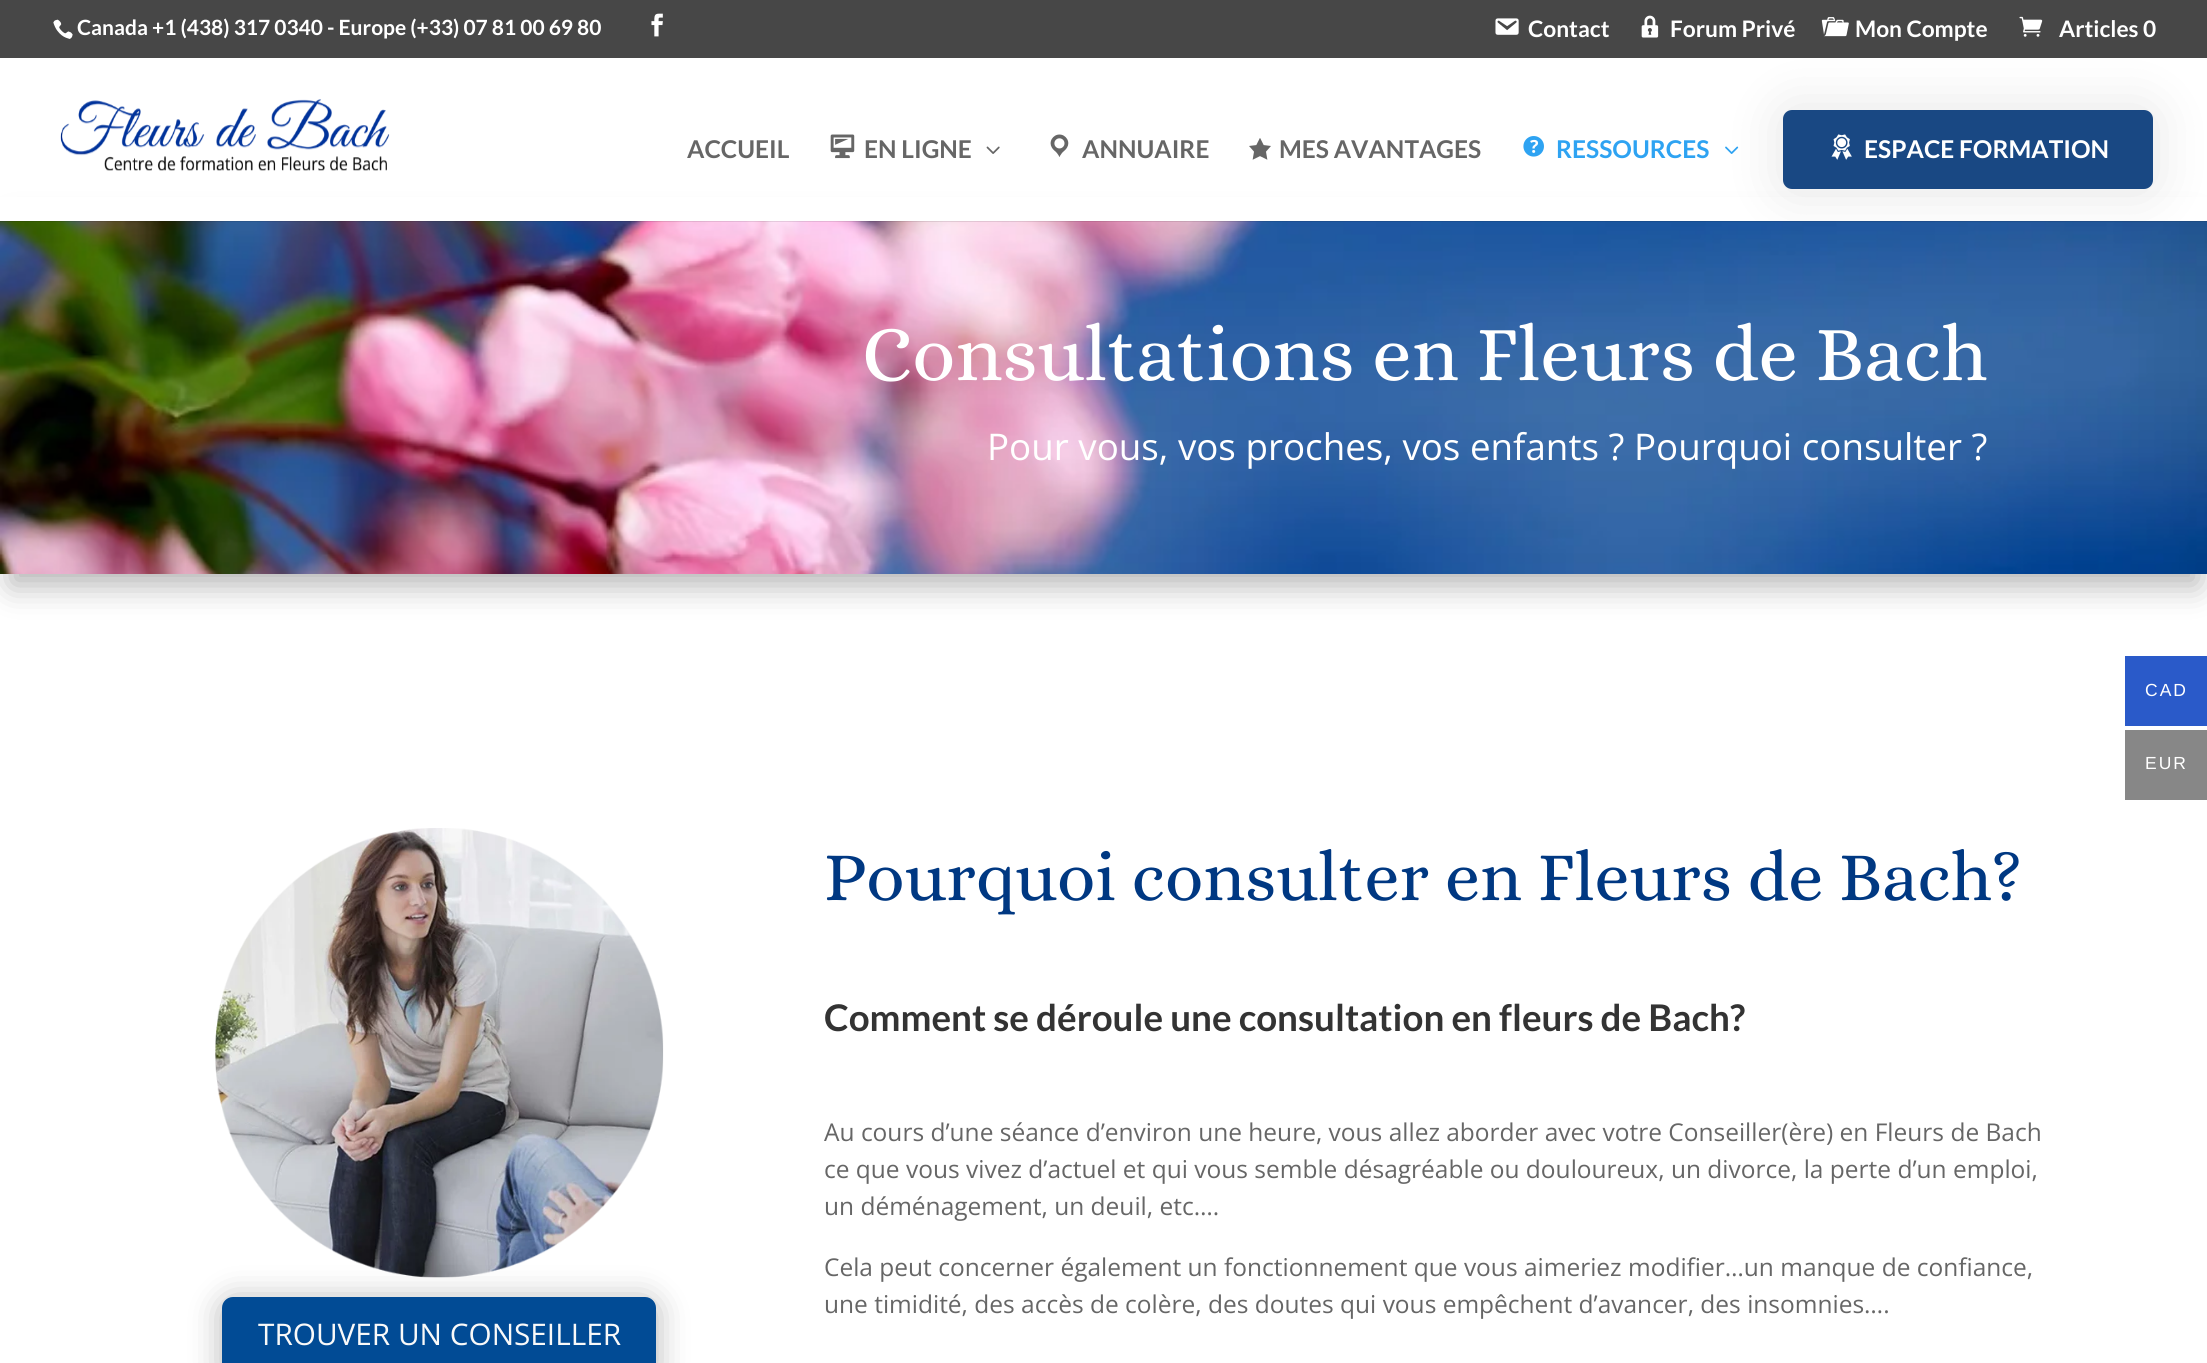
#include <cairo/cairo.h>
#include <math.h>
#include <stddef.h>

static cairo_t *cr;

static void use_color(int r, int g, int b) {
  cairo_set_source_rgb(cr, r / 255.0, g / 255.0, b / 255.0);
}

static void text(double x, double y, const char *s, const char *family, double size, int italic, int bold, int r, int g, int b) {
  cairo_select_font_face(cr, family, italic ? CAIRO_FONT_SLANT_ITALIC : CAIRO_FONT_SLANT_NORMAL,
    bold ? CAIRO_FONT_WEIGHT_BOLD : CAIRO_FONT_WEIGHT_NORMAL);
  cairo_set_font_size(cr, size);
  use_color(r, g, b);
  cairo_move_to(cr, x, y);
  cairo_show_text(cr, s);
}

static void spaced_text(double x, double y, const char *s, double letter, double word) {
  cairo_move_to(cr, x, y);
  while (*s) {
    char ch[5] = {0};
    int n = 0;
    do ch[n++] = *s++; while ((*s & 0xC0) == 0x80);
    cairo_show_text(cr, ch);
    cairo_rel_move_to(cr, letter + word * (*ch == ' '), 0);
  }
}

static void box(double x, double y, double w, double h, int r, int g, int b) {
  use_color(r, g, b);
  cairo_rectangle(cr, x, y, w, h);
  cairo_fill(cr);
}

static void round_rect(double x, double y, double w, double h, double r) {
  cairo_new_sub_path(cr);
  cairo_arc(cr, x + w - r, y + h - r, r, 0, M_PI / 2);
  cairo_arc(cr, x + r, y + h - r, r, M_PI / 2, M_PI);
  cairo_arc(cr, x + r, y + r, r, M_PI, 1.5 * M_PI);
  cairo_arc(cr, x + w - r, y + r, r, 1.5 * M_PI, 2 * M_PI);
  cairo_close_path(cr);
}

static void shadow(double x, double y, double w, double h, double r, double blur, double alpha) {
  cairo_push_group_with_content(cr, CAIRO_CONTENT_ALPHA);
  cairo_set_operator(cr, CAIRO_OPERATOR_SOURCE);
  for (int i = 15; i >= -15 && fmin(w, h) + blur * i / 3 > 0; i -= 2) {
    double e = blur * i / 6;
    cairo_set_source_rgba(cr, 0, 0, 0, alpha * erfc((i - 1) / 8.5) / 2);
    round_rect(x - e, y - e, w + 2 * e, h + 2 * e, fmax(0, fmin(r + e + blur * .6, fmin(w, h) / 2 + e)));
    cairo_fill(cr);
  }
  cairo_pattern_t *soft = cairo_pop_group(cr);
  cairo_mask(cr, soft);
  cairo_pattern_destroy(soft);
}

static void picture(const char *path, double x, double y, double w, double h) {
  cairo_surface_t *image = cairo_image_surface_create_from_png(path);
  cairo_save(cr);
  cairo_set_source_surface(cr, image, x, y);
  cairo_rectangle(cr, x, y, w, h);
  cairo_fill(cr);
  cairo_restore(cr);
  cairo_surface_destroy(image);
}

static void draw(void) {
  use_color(255, 255, 255);
  cairo_paint(cr);
  use_color(0, 0, 0);
  shadow(11, 226, 2187, 359, 0, 16, 0.3);
  picture("img_15.png", 0, 221, 2207, 353);
  cairo_set_source_rgba(cr, 0, 0, 0, 0.1);
  cairo_new_path(cr);
  cairo_move_to(cr, 0, 220);
  cairo_line_to(cr, 0, 222);
  cairo_line_to(cr, 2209, 222);
  cairo_line_to(cr, 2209, 54);
  cairo_line_to(cr, 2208, 54);
  cairo_line_to(cr, 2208, 220);
  cairo_close_path(cr);
  cairo_fill(cr);
  box(0, 197, 2207, 24, 255, 255, 255);
  picture("img_13.png", 1725, 146, 14, 8);
  use_color(0, 0, 0);
  shadow(1780, 107, 376, 86, 12, 26, 0.1);
  box(0, 0, 2207, 58, 71, 71, 71);
  picture("img_01.png", 53, 19, 20, 20);
  picture("img_02.png", 651, 13, 12, 24);
  picture("img_03.png", 1495, 18, 24, 17);
  picture("img_04.png", 1641, 15, 18, 23);
  picture("img_05.png", 1821, 17, 28, 20);
  picture("img_06.png", 2019, 16, 24, 21);
  picture("img_07.png", 60, 99, 330, 72);
  picture("img_08.png", 830, 134, 25, 25);
  picture("img_09.png", 986, 146, 14, 8);
  picture("img_10.png", 1050, 134, 19, 23);
  picture("img_11.png", 1249, 138, 22, 22);
  picture("img_12.png", 1523, 136, 21, 21);
  use_color(25, 72, 131);
  round_rect(1783, 110, 370, 79, 9);
  cairo_fill(cr);
  picture("img_14.png", 1831, 134, 21, 26);
  picture("img_16.png", 215, 828, 449, 450);
  use_color(0, 0, 0);
  shadow(222, 1300, 434, 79, 11, 16, 0.3);
  use_color(1, 75, 149);
  round_rect(224.5, 1299.5, 429, 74, 8.5);
  cairo_fill_preserve(cr);
  cairo_set_line_width(cr, 5);
  cairo_stroke(cr);
  box(2125, 656, 82, 70, 42, 90, 201);
  box(2125, 730, 82, 70, 135, 135, 135);
  text(77, 35, "Canada +1 (438) 317 0340 - Europe (+33) 07 81 00 69 80", "Lato", 21, 0, 1, 255, 255, 255);
  text(1528, 37, "Contact", "Lato", 22.75, 0, 1, 255, 255, 255);
  text(1670, 37, "Forum Privé", "Lato", 22.75, 0, 1, 255, 255, 255);
  text(1855, 37, "Mon Compte", "Lato", 22.75, 0, 1, 255, 255, 255);
  text(2059, 37, "Articles 0", "Lato", 22.75, 0, 1, 255, 255, 255);
  text(687, 158, "ACCUEIL", "Lato", 24.5, 0, 1, 102, 102, 102);
  text(864, 158, "EN LIGNE", "Lato", 24.5, 0, 1, 102, 102, 102);
  text(1082, 158, "ANNUAIRE", "Lato", 24.5, 0, 1, 102, 102, 102);
  text(1279, 158, "MES AVANTAGES", "Lato", 24.5, 0, 1, 102, 102, 102);
  text(1556, 158, "RESSOURCES", "Lato", 24.5, 0, 1, 46, 163, 242);
  text(1864, 158, "ESPACE FORMATION", "Lato", 24.5, 0, 1, 255, 255, 255);
  text(862, 380, "Consultations en Fleurs de Bach", "Alice", 78.75, 0, 0, 255, 255, 255);
  text(987, 460, "Pour vous, vos proches, vos enfants ? Pourquoi consulter ?", "Open Sans", 36.75, 0, 0, 255, 255, 255);
  text(824, 900, "Pourquoi consulter en Fleurs de Bach?", "Alice", 70, 0, 0, 0, 56, 130);
  text(824, 1031, "Comment se déroule une consultation en fleurs de Bach?", "Lato", 36.75, 0, 1, 51, 51, 51);
  text(824, 1141, "Au cours d’une séance d’environ une heure, vous allez aborder avec votre Conseiller(ère) en Fleurs de Bach", "Open Sans", 24.5, 0, 0, 102, 102, 102);
  text(824, 1178, "ce que vous vivez d’actuel et qui vous semble désagréable ou douloureux, un divorce, la perte d’un emploi,", "Open Sans", 24.5, 0, 0, 102, 102, 102);
  text(824, 1215, "un déménagement, un deuil, etc….", "Open Sans", 24.5, 0, 0, 102, 102, 102);
  text(824, 1276, "Cela peut concerner également un fonctionnement que vous aimeriez modifier…un manque de confiance,", "Open Sans", 24.5, 0, 0, 102, 102, 102);
  text(824, 1313, "une timidité, des accès de colère, des doutes qui vous empêchent d’avancer, des insomnies….", "Open Sans", 24.5, 0, 0, 102, 102, 102);
  text(258, 1345, "TROUVER UN CONSEILLER", "Open Sans", 29.75, 0, 0, 249, 249, 249);
  cairo_select_font_face(cr, "Liberation Sans", CAIRO_FONT_SLANT_NORMAL, CAIRO_FONT_WEIGHT_NORMAL);
  cairo_set_font_size(cr, 17.5);
  use_color(255, 255, 255);
  spaced_text(2145, 696, "CAD", 2, 0);
  spaced_text(2145, 769, "EUR", 2, 0);
}

int main(void) {
  cairo_surface_t *surface = cairo_image_surface_create(CAIRO_FORMAT_RGB24, 2207, 1363);
  cr = cairo_create(surface);
  cairo_font_options_t *options = cairo_font_options_create();
  cairo_font_options_set_hint_metrics(options, CAIRO_HINT_METRICS_OFF);
  cairo_font_options_set_hint_style(options, CAIRO_HINT_STYLE_NONE);
  cairo_set_font_options(cr, options);
  cairo_set_miter_limit(cr, 4);
  draw();
  cairo_surface_write_to_png(surface, "out.png");
  cairo_font_options_destroy(options);
  cairo_destroy(cr);
  cairo_surface_destroy(surface);
  return 0;
}
